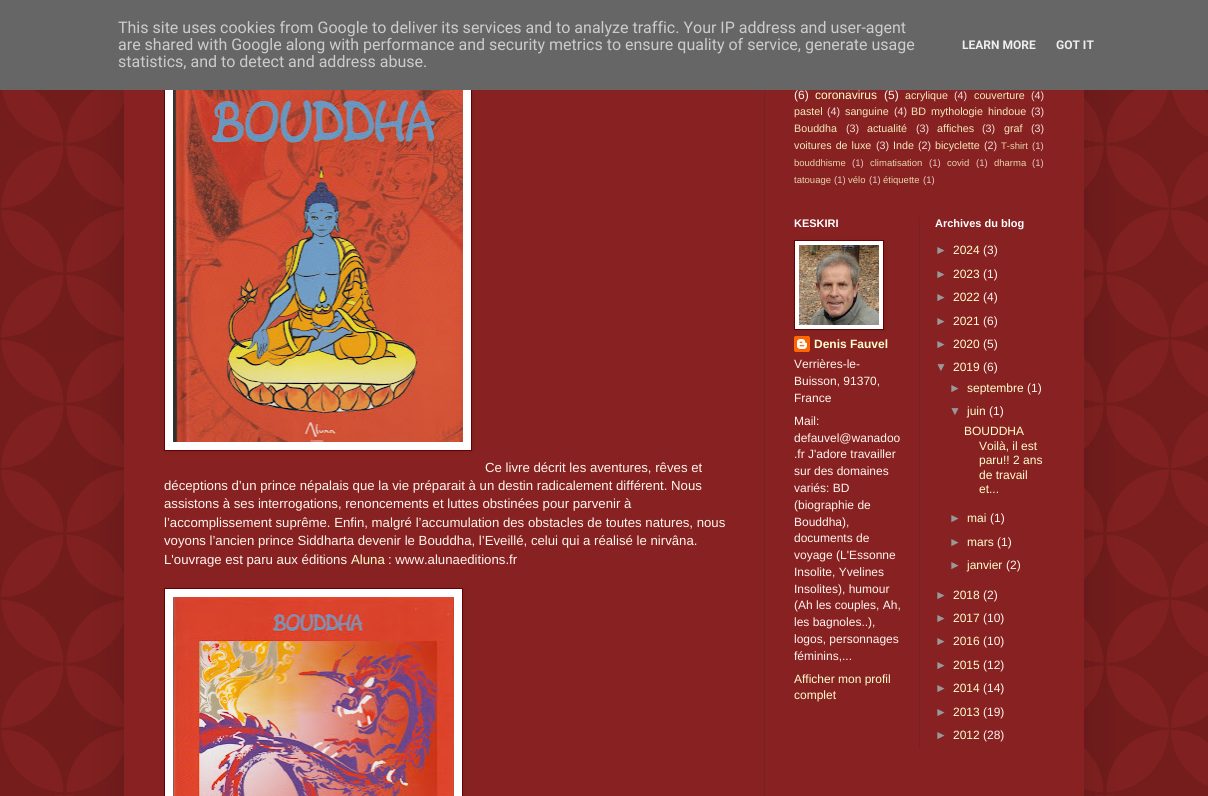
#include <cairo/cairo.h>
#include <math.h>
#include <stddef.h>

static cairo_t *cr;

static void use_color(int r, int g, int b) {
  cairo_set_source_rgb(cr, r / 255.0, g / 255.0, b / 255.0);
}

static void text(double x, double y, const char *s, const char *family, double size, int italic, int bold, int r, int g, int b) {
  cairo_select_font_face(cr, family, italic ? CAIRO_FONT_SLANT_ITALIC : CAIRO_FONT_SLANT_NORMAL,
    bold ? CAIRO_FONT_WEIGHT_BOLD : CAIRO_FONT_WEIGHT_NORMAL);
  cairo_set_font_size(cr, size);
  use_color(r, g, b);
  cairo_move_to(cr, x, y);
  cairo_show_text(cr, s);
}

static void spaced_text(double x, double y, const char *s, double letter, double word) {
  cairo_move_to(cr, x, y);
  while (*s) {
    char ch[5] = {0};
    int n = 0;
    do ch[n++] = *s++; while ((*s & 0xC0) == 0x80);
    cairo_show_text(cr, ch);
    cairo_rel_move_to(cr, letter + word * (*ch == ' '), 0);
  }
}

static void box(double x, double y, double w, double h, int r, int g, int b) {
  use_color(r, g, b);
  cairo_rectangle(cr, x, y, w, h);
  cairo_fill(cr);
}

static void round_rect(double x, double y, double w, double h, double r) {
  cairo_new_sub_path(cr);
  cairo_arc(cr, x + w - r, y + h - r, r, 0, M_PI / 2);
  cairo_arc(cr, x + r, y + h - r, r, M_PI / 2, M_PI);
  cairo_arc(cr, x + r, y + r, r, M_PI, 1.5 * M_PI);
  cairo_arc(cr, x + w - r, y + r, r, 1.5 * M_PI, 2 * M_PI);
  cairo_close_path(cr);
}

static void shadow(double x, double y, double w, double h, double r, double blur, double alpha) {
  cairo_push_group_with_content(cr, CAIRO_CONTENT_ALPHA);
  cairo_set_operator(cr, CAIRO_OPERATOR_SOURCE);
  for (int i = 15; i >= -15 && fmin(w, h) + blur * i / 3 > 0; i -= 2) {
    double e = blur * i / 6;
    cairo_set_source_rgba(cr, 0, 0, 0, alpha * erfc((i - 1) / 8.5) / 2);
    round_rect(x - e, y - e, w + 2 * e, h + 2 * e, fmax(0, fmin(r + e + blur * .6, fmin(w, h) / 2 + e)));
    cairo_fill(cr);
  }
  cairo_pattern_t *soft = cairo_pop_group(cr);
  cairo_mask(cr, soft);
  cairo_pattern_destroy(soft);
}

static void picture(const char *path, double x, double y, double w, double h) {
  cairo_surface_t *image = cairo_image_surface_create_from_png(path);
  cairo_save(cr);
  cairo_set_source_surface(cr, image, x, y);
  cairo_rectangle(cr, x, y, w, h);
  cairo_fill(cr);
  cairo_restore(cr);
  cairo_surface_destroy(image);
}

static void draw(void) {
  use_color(136, 34, 34);
  cairo_paint(cr);
  picture("img_01.png", 0, 90, 1208, 706);
  use_color(0, 0, 0);
  shadow(124, -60, 960, 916, 0, 20, 0.15);
  box(124, 90, 960, 706, 136, 34, 34);
  use_color(0, 0, 0);
  shadow(165, 34, 308, 418, 0, 2.5, 0.1);
  box(165, 90, 306, 360, 255, 255, 255);
  cairo_rectangle(cr, 164.5, 33.5, 307, 417);
  use_color(102, 0, 0);
  cairo_set_line_width(cr, 1);
  cairo_stroke(cr);
  box(0, 0, 1208, 90, 102, 102, 102);
  picture("img_02.png", 173, 90, 290, 352);
  use_color(0, 0, 0);
  shadow(165, 589, 299, 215, 0, 2.5, 0.1);
  use_color(255, 255, 255);
  cairo_rectangle(cr, 164.5, 588.5, 298, 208);
  cairo_fill_preserve(cr);
  use_color(102, 0, 0);
  cairo_stroke(cr);
  picture("img_03.png", 173, 597, 281, 199);
  picture("img_05.png", 794, 336, 16, 16);
  use_color(0, 0, 0);
  shadow(795, 241, 90, 90, 0, 2.5, 0.1);
  use_color(255, 255, 255);
  cairo_rectangle(cr, 794.5, 240.5, 89, 89);
  cairo_fill_preserve(cr);
  use_color(102, 0, 0);
  cairo_stroke(cr);
  picture("img_04.png", 799, 245, 80, 80);
  box(919, 217, 1, 531, 119, 34, 34);
  box(764, 90, 1, 706, 119, 34, 34);
  text(118, 33, "This site uses cookies from Google to deliver its services and to analyze traffic. Your IP address and user-agent", "Roboto", 16, 0, 0, 204, 204, 204);
  text(118, 50, "are shared with Google along with performance and security metrics to ensure quality of service, generate usage", "Roboto", 16, 0, 0, 204, 204, 204);
  text(118, 67, "statistics, and to detect and address abuse.", "Roboto", 16, 0, 0, 204, 204, 204);
  text(962, 49, "LEARN MORE", "Roboto", 12, 0, 1, 238, 238, 238);
  text(1056, 49, "GOT IT", "Roboto", 12, 0, 1, 238, 238, 238);
  text(485, 472, "Ce livre décrit les aventures, rêves et", "Liberation Sans", 13.2, 0, 0, 255, 245, 238);
  text(164, 490, "déceptions d’un prince népalais que la vie préparait à un destin radicalement différent. Nous", "Liberation Sans", 13.2, 0, 0, 255, 245, 238);
  text(164, 508, "assistons à ses interrogations, renoncements et luttes obstinées pour parvenir à", "Liberation Sans", 13.2, 0, 0, 255, 245, 238);
  text(164, 527, "l’accomplissement suprême. Enfin, malgré l’accumulation des obstacles de toutes natures, nous", "Liberation Sans", 13.2, 0, 0, 255, 245, 238);
  text(164, 545, "voyons l’ancien prince Siddharta devenir le Bouddha, l’Eveillé, celui qui a réalisé le nirvâna.", "Liberation Sans", 13.2, 0, 0, 255, 245, 238);
  text(164, 564, "L'ouvrage est paru aux éditions", "Liberation Sans", 13.2, 0, 0, 255, 245, 238);
  text(351, 564, "Aluna", "Liberation Sans", 13.2, 0, 0, 255, 255, 204);
  text(388, 564, ": www.alunaeditions.fr", "Liberation Sans", 13.2, 0, 0, 255, 245, 238);
  text(794, 99, "(6)", "Liberation Sans", 12, 0, 0, 255, 245, 238);
  text(815, 99, "coronavirus", "Liberation Sans", 12, 0, 0, 255, 255, 204);
  text(884, 99, "(5)", "Liberation Sans", 12, 0, 0, 255, 245, 238);
  text(905, 99, "acrylique", "Liberation Sans", 10.75, 0, 0, 243, 233, 187);
  text(954, 99, "(4)", "Liberation Sans", 10.75, 0, 0, 243, 224, 218);
  text(974, 99, "couverture", "Liberation Sans", 10.75, 0, 0, 243, 233, 187);
  text(1031, 99, "(4)", "Liberation Sans", 10.75, 0, 0, 243, 224, 218);
  text(794, 115, "pastel", "Liberation Sans", 10.75, 0, 0, 243, 233, 187);
  text(827, 115, "(4)", "Liberation Sans", 10.75, 0, 0, 243, 224, 218);
  text(845, 115, "sanguine", "Liberation Sans", 10.75, 0, 0, 243, 233, 187);
  text(894, 115, "(4)", "Liberation Sans", 10.75, 0, 0, 243, 224, 218);
  use_color(243, 233, 187);
  spaced_text(911, 115, "BD mythologie hindoue", 0, 2);
  text(1031, 115, "(3)", "Liberation Sans", 10.75, 0, 0, 243, 224, 218);
  text(794, 132, "Bouddha", "Liberation Sans", 10.75, 0, 0, 243, 233, 187);
  text(846, 132, "(3)", "Liberation Sans", 10.75, 0, 0, 243, 224, 218);
  text(867, 132, "actualité", "Liberation Sans", 10.75, 0, 0, 243, 233, 187);
  text(916, 132, "(3)", "Liberation Sans", 10.75, 0, 0, 243, 224, 218);
  text(937, 132, "affiches", "Liberation Sans", 10.75, 0, 0, 243, 233, 187);
  text(982, 132, "(3)", "Liberation Sans", 10.75, 0, 0, 243, 224, 218);
  text(1004, 132, "graf", "Liberation Sans", 10.75, 0, 0, 243, 233, 187);
  text(1031, 132, "(3)", "Liberation Sans", 10.75, 0, 0, 243, 224, 218);
  use_color(243, 233, 187);
  spaced_text(794, 149, "voitures de luxe", 0, 1);
  text(876, 149, "(3)", "Liberation Sans", 10.75, 0, 0, 243, 224, 218);
  text(893, 149, "Inde", "Liberation Sans", 10.75, 0, 0, 243, 233, 187);
  text(918, 149, "(2)", "Liberation Sans", 10.75, 0, 0, 243, 224, 218);
  text(935, 149, "bicyclette", "Liberation Sans", 10.75, 0, 0, 243, 233, 187);
  text(984, 149, "(2)", "Liberation Sans", 10.75, 0, 0, 243, 224, 218);
  text(1001, 149, "T-shirt", "Liberation Sans", 9.5, 0, 0, 231, 211, 170);
  text(1032, 149, "(1)", "Liberation Sans", 9.5, 0, 0, 231, 203, 197);
  text(794, 166, "bouddhisme", "Liberation Sans", 9.5, 0, 0, 231, 211, 170);
  text(852, 166, "(1)", "Liberation Sans", 9.5, 0, 0, 231, 203, 197);
  text(870, 166, "climatisation", "Liberation Sans", 9.5, 0, 0, 231, 211, 170);
  text(929, 166, "(1)", "Liberation Sans", 9.5, 0, 0, 231, 203, 197);
  text(947, 166, "covid", "Liberation Sans", 9.5, 0, 0, 231, 211, 170);
  text(976, 166, "(1)", "Liberation Sans", 9.5, 0, 0, 231, 203, 197);
  text(994, 166, "dharma", "Liberation Sans", 9.5, 0, 0, 231, 211, 170);
  text(1032, 166, "(1)", "Liberation Sans", 9.5, 0, 0, 231, 203, 197);
  text(794, 183, "tatouage", "Liberation Sans", 9.5, 0, 0, 231, 211, 170);
  text(834, 183, "(1)", "Liberation Sans", 9.5, 0, 0, 231, 203, 197);
  text(848, 183, "vélo", "Liberation Sans", 9.5, 0, 0, 231, 211, 170);
  text(869, 183, "(1)", "Liberation Sans", 9.5, 0, 0, 231, 203, 197);
  text(883, 183, "étiquette", "Liberation Sans", 9.5, 0, 0, 231, 211, 170);
  text(923, 183, "(1)", "Liberation Sans", 9.5, 0, 0, 231, 203, 197);
  text(794, 227, "KESKIRI", "Liberation Sans", 11, 0, 1, 255, 255, 255);
  text(814, 348, "Denis Fauvel", "Liberation Sans", 12, 0, 1, 255, 255, 204);
  text(794, 368, "Verrières-le-", "Liberation Sans", 12, 0, 0, 255, 245, 238);
  text(794, 385, "Buisson, 91370,", "Liberation Sans", 12, 0, 0, 255, 245, 238);
  text(794, 402, "France", "Liberation Sans", 12, 0, 0, 255, 245, 238);
  text(794, 425, "Mail:", "Liberation Sans", 12, 0, 0, 255, 245, 238);
  text(794, 442, "defauvel@wanadoo", "Liberation Sans", 12, 0, 0, 255, 245, 238);
  text(794, 458, ".fr J'adore travailler", "Liberation Sans", 12, 0, 0, 255, 245, 238);
  text(794, 475, "sur des domaines", "Liberation Sans", 12, 0, 0, 255, 245, 238);
  text(794, 492, "variés: BD", "Liberation Sans", 12, 0, 0, 255, 245, 238);
  text(794, 509, "(biographie de", "Liberation Sans", 12, 0, 0, 255, 245, 238);
  text(794, 526, "Bouddha),", "Liberation Sans", 12, 0, 0, 255, 245, 238);
  text(794, 542, "documents de", "Liberation Sans", 12, 0, 0, 255, 245, 238);
  text(794, 559, "voyage (L'Essonne", "Liberation Sans", 12, 0, 0, 255, 245, 238);
  text(794, 576, "Insolite, Yvelines", "Liberation Sans", 12, 0, 0, 255, 245, 238);
  text(794, 593, "Insolites), humour", "Liberation Sans", 12, 0, 0, 255, 245, 238);
  text(794, 609, "(Ah les couples, Ah,", "Liberation Sans", 12, 0, 0, 255, 245, 238);
  text(794, 626, "les bagnoles..),", "Liberation Sans", 12, 0, 0, 255, 245, 238);
  text(794, 643, "logos, personnages", "Liberation Sans", 12, 0, 0, 255, 245, 238);
  text(794, 660, "féminins,...", "Liberation Sans", 12, 0, 0, 255, 245, 238);
  text(794, 683, "Afficher mon profil", "Liberation Sans", 12, 0, 0, 255, 255, 204);
  text(794, 699, "complet", "Liberation Sans", 12, 0, 0, 255, 255, 204);
  text(935, 227, "Archives du blog", "Liberation Sans", 11, 0, 1, 255, 255, 255);
  text(935, 254, "►", "Liberation Sans", 12, 0, 0, 153, 153, 153);
  text(953, 254, "2024", "Liberation Sans", 12, 0, 0, 255, 255, 204);
  text(983, 254, "(3)", "Liberation Sans", 12, 0, 0, 255, 245, 238);
  text(935, 278, "►", "Liberation Sans", 12, 0, 0, 153, 153, 153);
  text(953, 278, "2023", "Liberation Sans", 12, 0, 0, 255, 255, 204);
  text(983, 278, "(1)", "Liberation Sans", 12, 0, 0, 255, 245, 238);
  text(935, 301, "►", "Liberation Sans", 12, 0, 0, 153, 153, 153);
  text(953, 301, "2022", "Liberation Sans", 12, 0, 0, 255, 255, 204);
  text(983, 301, "(4)", "Liberation Sans", 12, 0, 0, 255, 245, 238);
  text(935, 325, "►", "Liberation Sans", 12, 0, 0, 153, 153, 153);
  text(953, 325, "2021", "Liberation Sans", 12, 0, 0, 255, 255, 204);
  text(983, 325, "(6)", "Liberation Sans", 12, 0, 0, 255, 245, 238);
  text(935, 348, "►", "Liberation Sans", 12, 0, 0, 153, 153, 153);
  text(953, 348, "2020", "Liberation Sans", 12, 0, 0, 255, 255, 204);
  text(983, 348, "(5)", "Liberation Sans", 12, 0, 0, 255, 245, 238);
  text(935, 371, "▼", "Liberation Sans", 12, 0, 0, 153, 153, 153);
  text(953, 371, "2019", "Liberation Sans", 12, 0, 0, 255, 255, 204);
  text(983, 371, "(6)", "Liberation Sans", 12, 0, 0, 255, 245, 238);
  text(949, 392, "►", "Liberation Sans", 12, 0, 0, 153, 153, 153);
  text(967, 392, "septembre", "Liberation Sans", 12, 0, 0, 255, 255, 204);
  text(1027, 392, "(1)", "Liberation Sans", 12, 0, 0, 255, 245, 238);
  text(949, 415, "▼", "Liberation Sans", 12, 0, 0, 153, 153, 153);
  text(967, 415, "juin", "Liberation Sans", 12, 0, 0, 255, 255, 204);
  text(989, 415, "(1)", "Liberation Sans", 12, 0, 0, 255, 245, 238);
  text(964, 435, "BOUDDHA", "Liberation Sans", 12, 0, 0, 255, 255, 204);
  text(979, 450, "Voilà, il est", "Liberation Sans", 12, 0, 0, 255, 255, 204);
  text(979, 464, "paru!! 2 ans", "Liberation Sans", 12, 0, 0, 255, 255, 204);
  text(979, 479, "de travail", "Liberation Sans", 12, 0, 0, 255, 255, 204);
  text(979, 493, "et...", "Liberation Sans", 12, 0, 0, 255, 255, 204);
  text(949, 522, "►", "Liberation Sans", 12, 0, 0, 153, 153, 153);
  text(967, 522, "mai", "Liberation Sans", 12, 0, 0, 255, 255, 204);
  text(990, 522, "(1)", "Liberation Sans", 12, 0, 0, 255, 245, 238);
  text(949, 546, "►", "Liberation Sans", 12, 0, 0, 153, 153, 153);
  text(967, 546, "mars", "Liberation Sans", 12, 0, 0, 255, 255, 204);
  text(997, 546, "(1)", "Liberation Sans", 12, 0, 0, 255, 245, 238);
  text(949, 569, "►", "Liberation Sans", 12, 0, 0, 153, 153, 153);
  text(967, 569, "janvier", "Liberation Sans", 12, 0, 0, 255, 255, 204);
  text(1006, 569, "(2)", "Liberation Sans", 12, 0, 0, 255, 245, 238);
  text(935, 599, "►", "Liberation Sans", 12, 0, 0, 153, 153, 153);
  text(953, 599, "2018", "Liberation Sans", 12, 0, 0, 255, 255, 204);
  text(983, 599, "(2)", "Liberation Sans", 12, 0, 0, 255, 245, 238);
  text(935, 622, "►", "Liberation Sans", 12, 0, 0, 153, 153, 153);
  text(953, 622, "2017", "Liberation Sans", 12, 0, 0, 255, 255, 204);
  text(983, 622, "(10)", "Liberation Sans", 12, 0, 0, 255, 245, 238);
  text(935, 645, "►", "Liberation Sans", 12, 0, 0, 153, 153, 153);
  text(953, 645, "2016", "Liberation Sans", 12, 0, 0, 255, 255, 204);
  text(983, 645, "(10)", "Liberation Sans", 12, 0, 0, 255, 245, 238);
  text(935, 669, "►", "Liberation Sans", 12, 0, 0, 153, 153, 153);
  text(953, 669, "2015", "Liberation Sans", 12, 0, 0, 255, 255, 204);
  text(983, 669, "(12)", "Liberation Sans", 12, 0, 0, 255, 245, 238);
  text(935, 692, "►", "Liberation Sans", 12, 0, 0, 153, 153, 153);
  text(953, 692, "2014", "Liberation Sans", 12, 0, 0, 255, 255, 204);
  text(983, 692, "(14)", "Liberation Sans", 12, 0, 0, 255, 245, 238);
  text(935, 716, "►", "Liberation Sans", 12, 0, 0, 153, 153, 153);
  text(953, 716, "2013", "Liberation Sans", 12, 0, 0, 255, 255, 204);
  text(983, 716, "(19)", "Liberation Sans", 12, 0, 0, 255, 245, 238);
  text(935, 739, "►", "Liberation Sans", 12, 0, 0, 153, 153, 153);
  text(953, 739, "2012", "Liberation Sans", 12, 0, 0, 255, 255, 204);
  text(983, 739, "(28)", "Liberation Sans", 12, 0, 0, 255, 245, 238);
}

int main(void) {
  cairo_surface_t *surface = cairo_image_surface_create(CAIRO_FORMAT_RGB24, 1208, 796);
  cr = cairo_create(surface);
  cairo_font_options_t *options = cairo_font_options_create();
  cairo_font_options_set_hint_metrics(options, CAIRO_HINT_METRICS_OFF);
  cairo_font_options_set_hint_style(options, CAIRO_HINT_STYLE_NONE);
  cairo_set_font_options(cr, options);
  cairo_set_miter_limit(cr, 4);
  draw();
  cairo_surface_write_to_png(surface, "out.png");
  cairo_font_options_destroy(options);
  cairo_destroy(cr);
  cairo_surface_destroy(surface);
  return 0;
}
